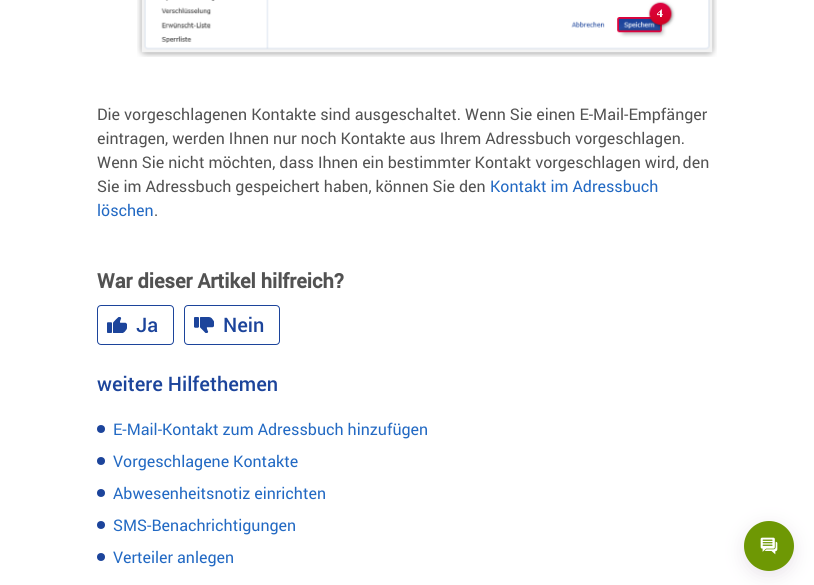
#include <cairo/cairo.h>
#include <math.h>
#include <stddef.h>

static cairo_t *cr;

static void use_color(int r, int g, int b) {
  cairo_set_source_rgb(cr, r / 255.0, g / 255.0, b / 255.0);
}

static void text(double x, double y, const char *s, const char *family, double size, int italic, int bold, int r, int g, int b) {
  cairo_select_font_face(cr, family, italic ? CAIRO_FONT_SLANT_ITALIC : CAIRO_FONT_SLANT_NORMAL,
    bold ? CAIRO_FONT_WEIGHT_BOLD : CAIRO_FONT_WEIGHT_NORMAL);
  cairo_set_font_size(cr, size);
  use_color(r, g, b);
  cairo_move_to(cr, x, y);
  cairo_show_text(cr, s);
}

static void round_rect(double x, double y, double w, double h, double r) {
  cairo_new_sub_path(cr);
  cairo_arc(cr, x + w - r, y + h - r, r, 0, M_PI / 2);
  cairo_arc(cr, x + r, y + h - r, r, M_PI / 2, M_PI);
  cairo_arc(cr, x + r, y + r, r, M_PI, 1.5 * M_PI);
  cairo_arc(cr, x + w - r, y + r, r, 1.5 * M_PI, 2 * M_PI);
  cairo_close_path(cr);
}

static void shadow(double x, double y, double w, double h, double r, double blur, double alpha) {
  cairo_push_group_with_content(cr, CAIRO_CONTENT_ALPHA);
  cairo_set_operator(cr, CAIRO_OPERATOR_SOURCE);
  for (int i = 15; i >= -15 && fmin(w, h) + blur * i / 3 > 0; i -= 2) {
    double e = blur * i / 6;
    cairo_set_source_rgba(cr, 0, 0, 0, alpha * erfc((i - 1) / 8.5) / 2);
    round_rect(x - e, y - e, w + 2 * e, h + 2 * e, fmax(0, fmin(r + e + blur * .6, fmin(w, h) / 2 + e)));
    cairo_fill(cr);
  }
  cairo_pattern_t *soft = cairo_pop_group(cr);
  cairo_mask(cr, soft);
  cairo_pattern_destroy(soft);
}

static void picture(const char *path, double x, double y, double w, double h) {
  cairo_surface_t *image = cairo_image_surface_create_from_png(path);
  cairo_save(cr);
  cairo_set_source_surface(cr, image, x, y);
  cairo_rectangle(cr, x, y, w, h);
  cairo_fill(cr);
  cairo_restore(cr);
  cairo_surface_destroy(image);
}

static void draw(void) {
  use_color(255, 255, 255);
  cairo_paint(cr);
  picture("img_01.png", 137, 0, 580, 57);
  round_rect(97.5, 305.5, 76, 39, 3.5);
  use_color(28, 68, 155);
  cairo_set_line_width(cr, 1);
  cairo_stroke(cr);
  picture("img_02.png", 107, 317, 20, 16);
  round_rect(184.5, 305.5, 95, 39, 3.5);
  cairo_stroke(cr);
  picture("img_03.png", 194, 317, 20, 16);
  cairo_arc(cr, 101, 429, 4, 0, 2 * M_PI);
  cairo_fill(cr);
  cairo_arc(cr, 101, 461, 4, 0, 2 * M_PI);
  cairo_fill(cr);
  cairo_arc(cr, 101, 493, 4, 0, 2 * M_PI);
  cairo_fill(cr);
  cairo_arc(cr, 101, 525, 4, 0, 2 * M_PI);
  cairo_fill(cr);
  cairo_arc(cr, 101, 557, 4, 0, 2 * M_PI);
  cairo_fill(cr);
  use_color(151, 124, 156);
  shadow(744, 526, 50, 50, 25, 9, 0.2);
  use_color(110, 152, 4);
  cairo_arc(cr, 769, 546, 25, 0, 2 * M_PI);
  cairo_fill(cr);
  picture("img_04.png", 760, 537, 18, 18);
  text(97, 120, "Die vorgeschlagenen Kontakte sind ausgeschaltet. Wenn Sie einen E-Mail-Empfänger", "Roboto", 16, 0, 0, 82, 82, 82);
  text(97, 144, "eintragen, werden Ihnen nur noch Kontakte aus Ihrem Adressbuch vorgeschlagen.", "Roboto", 16, 0, 0, 82, 82, 82);
  text(97, 168, "Wenn Sie nicht möchten, dass Ihnen ein bestimmter Kontakt vorgeschlagen wird, den", "Roboto", 16, 0, 0, 82, 82, 82);
  text(97, 192, "Sie im Adressbuch gespeichert haben, können Sie den", "Roboto", 16, 0, 0, 82, 82, 82);
  text(490, 192, "Kontakt im Adressbuch", "Roboto", 16, 0, 0, 34, 105, 195);
  text(97, 216, "löschen", "Roboto", 16, 0, 0, 34, 105, 195);
  text(154, 216, ".", "Roboto", 16, 0, 0, 82, 82, 82);
  text(97, 288, "War dieser Artikel hilfreich?", "Roboto", 20, 0, 1, 82, 82, 82);
  text(136, 332, "Ja", "Roboto Medium", 20, 0, 0, 28, 68, 155);
  text(223, 332, "Nein", "Roboto Medium", 20, 0, 0, 28, 68, 155);
  text(97, 391, "weitere Hilfethemen", "Roboto Medium", 20, 0, 0, 28, 68, 155);
  text(113, 435, "E-Mail-Kontakt zum Adressbuch hinzufügen", "Roboto", 16, 0, 0, 34, 105, 195);
  text(113, 467, "Vorgeschlagene Kontakte", "Roboto", 16, 0, 0, 34, 105, 195);
  text(113, 499, "Abwesenheitsnotiz einrichten", "Roboto", 16, 0, 0, 34, 105, 195);
  text(113, 531, "SMS-Benachrichtigungen", "Roboto", 16, 0, 0, 34, 105, 195);
  text(113, 563, "Verteiler anlegen", "Roboto", 16, 0, 0, 34, 105, 195);
}

int main(void) {
  cairo_surface_t *surface = cairo_image_surface_create(CAIRO_FORMAT_RGB24, 814, 585);
  cr = cairo_create(surface);
  cairo_font_options_t *options = cairo_font_options_create();
  cairo_font_options_set_hint_metrics(options, CAIRO_HINT_METRICS_OFF);
  cairo_font_options_set_hint_style(options, CAIRO_HINT_STYLE_NONE);
  cairo_set_font_options(cr, options);
  cairo_set_miter_limit(cr, 4);
  draw();
  cairo_surface_write_to_png(surface, "out.png");
  cairo_font_options_destroy(options);
  cairo_destroy(cr);
  cairo_surface_destroy(surface);
  return 0;
}
